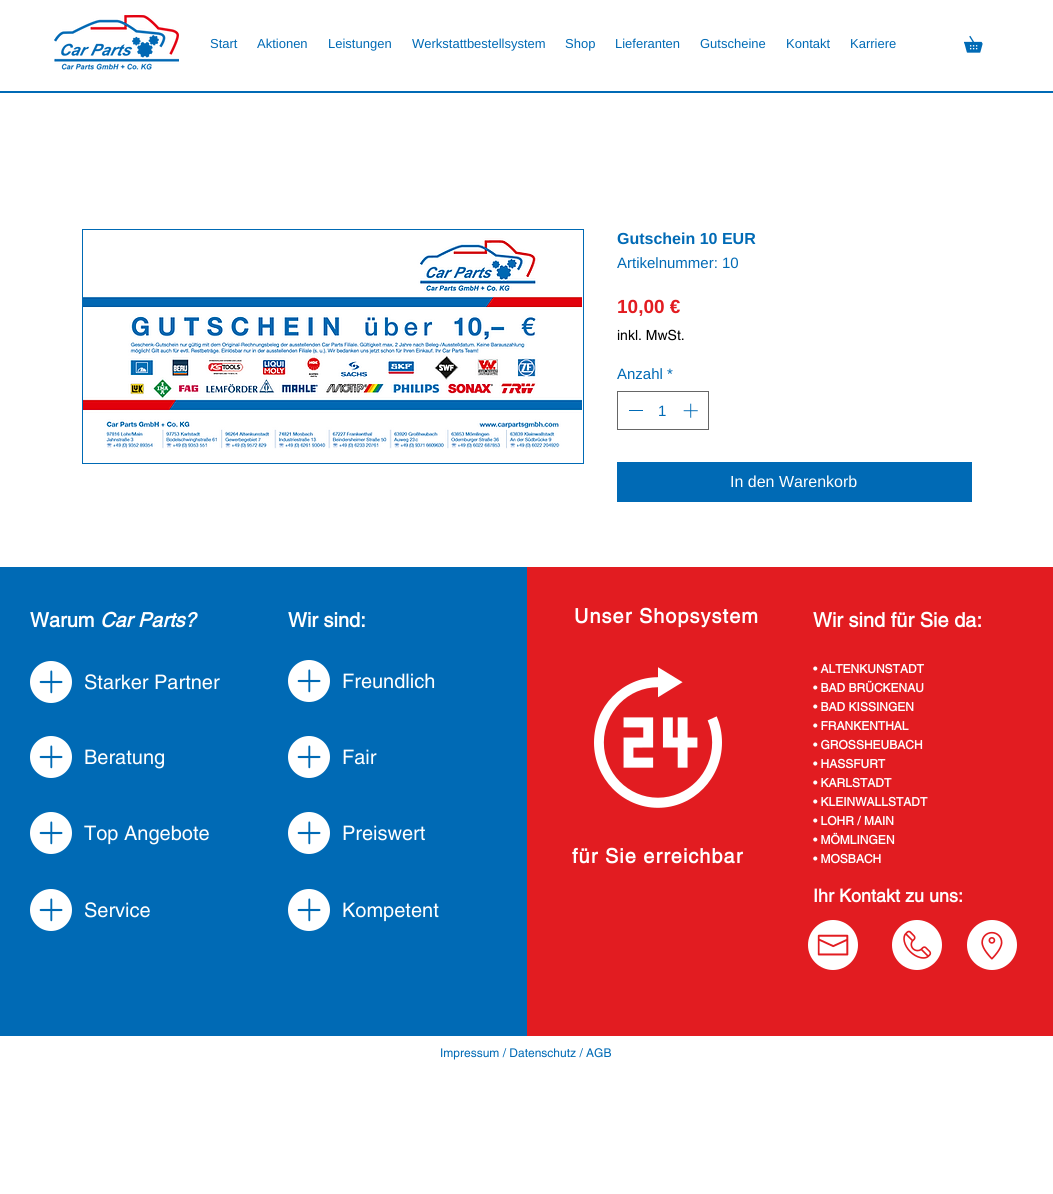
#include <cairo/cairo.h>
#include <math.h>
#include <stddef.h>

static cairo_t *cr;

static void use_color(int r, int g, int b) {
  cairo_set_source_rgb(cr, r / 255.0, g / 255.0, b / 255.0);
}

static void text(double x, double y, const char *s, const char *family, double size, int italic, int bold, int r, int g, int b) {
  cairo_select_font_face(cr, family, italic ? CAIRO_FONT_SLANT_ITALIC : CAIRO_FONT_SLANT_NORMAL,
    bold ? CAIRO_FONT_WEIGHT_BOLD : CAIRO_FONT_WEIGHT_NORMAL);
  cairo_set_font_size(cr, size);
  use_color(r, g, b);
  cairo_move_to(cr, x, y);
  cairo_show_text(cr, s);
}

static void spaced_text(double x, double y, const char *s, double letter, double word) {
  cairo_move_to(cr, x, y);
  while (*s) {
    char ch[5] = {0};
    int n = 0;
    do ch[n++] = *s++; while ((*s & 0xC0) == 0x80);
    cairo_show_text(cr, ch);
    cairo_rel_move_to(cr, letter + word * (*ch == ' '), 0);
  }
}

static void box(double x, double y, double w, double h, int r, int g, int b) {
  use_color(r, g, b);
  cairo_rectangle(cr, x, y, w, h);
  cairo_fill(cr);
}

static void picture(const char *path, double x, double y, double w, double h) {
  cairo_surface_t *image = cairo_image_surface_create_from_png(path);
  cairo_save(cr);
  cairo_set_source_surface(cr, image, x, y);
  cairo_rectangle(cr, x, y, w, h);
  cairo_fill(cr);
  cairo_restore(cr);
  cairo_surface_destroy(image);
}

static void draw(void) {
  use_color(255, 255, 255);
  cairo_paint(cr);
  picture("img_01.png", 54, 15, 125, 55);
  picture("img_02.png", 964, 35, 19, 18);
  box(0, 91, 1053, 2, 0, 106, 181);
  cairo_rectangle(cr, 82.5, 229.5, 501, 234);
  cairo_set_line_width(cr, 1);
  cairo_stroke(cr);
  picture("img_03.png", 83, 238, 499, 211);
  cairo_rectangle(cr, 617.5, 391.5, 91, 38);
  use_color(102, 102, 102);
  cairo_stroke(cr);
  box(629, 410, 14, 1, 0, 106, 181);
  picture("img_04.png", 683, 403, 15, 15);
  box(617, 462, 355, 40, 0, 106, 181);
  box(0, 567, 527, 469, 0, 106, 181);
  picture("img_05.png", 30, 661, 42, 42);
  picture("img_05.png", 30, 736, 42, 42);
  picture("img_05.png", 30, 812, 42, 42);
  picture("img_05.png", 30, 889, 42, 42);
  picture("img_05.png", 288, 660, 42, 42);
  picture("img_05.png", 288, 736, 42, 42);
  picture("img_05.png", 288, 812, 42, 42);
  picture("img_05.png", 288, 889, 42, 42);
  box(527, 567, 526, 469, 226, 28, 33);
  picture("img_06.png", 594, 667, 128, 141);
  picture("img_07.png", 808, 920, 50, 50);
  picture("img_08.png", 892, 920, 50, 50);
  picture("img_09.png", 967, 920, 50, 50);
  text(210, 48, "Start", "Liberation Sans", 13, 0, 0, 0, 106, 181);
  text(257, 48, "Aktionen", "Liberation Sans", 13, 0, 0, 0, 106, 181);
  text(328, 48, "Leistungen", "Liberation Sans", 13, 0, 0, 0, 106, 181);
  text(412, 48, "Werkstattbestellsystem", "Liberation Sans", 13, 0, 0, 0, 106, 181);
  text(565, 48, "Shop", "Liberation Sans", 13, 0, 0, 0, 106, 181);
  text(615, 48, "Lieferanten", "Liberation Sans", 13, 0, 0, 0, 106, 181);
  text(700, 48, "Gutscheine", "Liberation Sans", 13, 0, 0, 0, 106, 181);
  text(786, 48, "Kontakt", "Liberation Sans", 13, 0, 0, 0, 106, 181);
  text(850, 48, "Karriere", "Liberation Sans", 13, 0, 0, 0, 106, 181);
  text(617, 244, "Gutschein 10 EUR", "Liberation Sans", 16, 0, 1, 0, 106, 181);
  text(617, 268, "Artikelnummer: 10", "Liberation Sans", 15, 0, 0, 0, 106, 181);
  text(617, 313, "10,00 €", "Liberation Sans", 19, 0, 1, 226, 28, 33);
  text(617, 340, "inkl. MwSt.", "helvetica", 14, 0, 0, 0, 0, 0);
  text(617, 379, "Anzahl *", "Liberation Sans", 15, 0, 0, 0, 106, 181);
  text(658, 416, "1", "Liberation Sans", 15, 0, 0, 0, 106, 181);
  text(730, 487, "In den Warenkorb", "Liberation Sans", 16, 0, 0, 255, 255, 255);
  text(30, 627, "Warum", "helvetica", 20, 0, 1, 255, 255, 255);
  text(100, 627, "Car Parts?", "helvetica", 20, 1, 1, 255, 255, 255);
  text(84, 689, "Starker Partner", "helvetica", 20, 0, 0, 255, 255, 255);
  text(84, 764, "Beratung", "helvetica", 20, 0, 0, 255, 255, 255);
  text(84, 840, "Top Angebote", "helvetica", 20, 0, 0, 255, 255, 255);
  text(84, 917, "Service", "helvetica", 20, 0, 0, 255, 255, 255);
  text(288, 627, "Wir sind:", "helvetica", 20, 0, 1, 255, 255, 255);
  text(342, 688, "Freundlich", "helvetica", 20, 0, 0, 255, 255, 255);
  text(342, 764, "Fair", "helvetica", 20, 0, 0, 255, 255, 255);
  text(342, 840, "Preiswert", "helvetica", 20, 0, 0, 255, 255, 255);
  text(342, 917, "Kompetent", "helvetica", 20, 0, 0, 255, 255, 255);
  cairo_select_font_face(cr, "helvetica", CAIRO_FONT_SLANT_NORMAL, CAIRO_FONT_WEIGHT_BOLD);
  spaced_text(574, 623, "Unser Shopsystem", 1, 0);
  spaced_text(572, 863, "für Sie erreichbar", 1, 0);
  text(813, 627, "Wir sind für Sie da:", "helvetica", 20, 0, 1, 255, 255, 255);
  text(813, 673, "• ALTENKUNSTADT", "helvetica", 12, 0, 1, 255, 255, 255);
  text(813, 692, "• BAD BRÜCKENAU", "helvetica", 12, 0, 1, 255, 255, 255);
  text(813, 711, "• BAD KISSINGEN", "helvetica", 12, 0, 1, 255, 255, 255);
  text(813, 730, "• FRANKENTHAL", "helvetica", 12, 0, 1, 255, 255, 255);
  text(813, 749, "• GROSSHEUBACH", "helvetica", 12, 0, 1, 255, 255, 255);
  text(813, 768, "• HASSFURT", "helvetica", 12, 0, 1, 255, 255, 255);
  text(813, 787, "• KARLSTADT", "helvetica", 12, 0, 1, 255, 255, 255);
  text(813, 806, "• KLEINWALLSTADT", "helvetica", 12, 0, 1, 255, 255, 255);
  text(813, 825, "• LOHR / MAIN", "helvetica", 12, 0, 1, 255, 255, 255);
  text(813, 844, "• MÖMLINGEN", "helvetica", 12, 0, 1, 255, 255, 255);
  text(813, 863, "• MOSBACH", "helvetica", 12, 0, 1, 255, 255, 255);
  text(813, 902, "Ihr Kontakt zu uns:", "helvetica", 18, 0, 1, 255, 255, 255);
  text(440, 1057, "Impressum / Datenschutz / AGB", "helvetica", 12, 0, 0, 0, 106, 181);
}

int main(void) {
  cairo_surface_t *surface = cairo_image_surface_create(CAIRO_FORMAT_RGB24, 1053, 1194);
  cr = cairo_create(surface);
  cairo_font_options_t *options = cairo_font_options_create();
  cairo_font_options_set_hint_metrics(options, CAIRO_HINT_METRICS_OFF);
  cairo_font_options_set_hint_style(options, CAIRO_HINT_STYLE_NONE);
  cairo_set_font_options(cr, options);
  cairo_set_miter_limit(cr, 4);
  draw();
  cairo_surface_write_to_png(surface, "out.png");
  cairo_font_options_destroy(options);
  cairo_destroy(cr);
  cairo_surface_destroy(surface);
  return 0;
}
